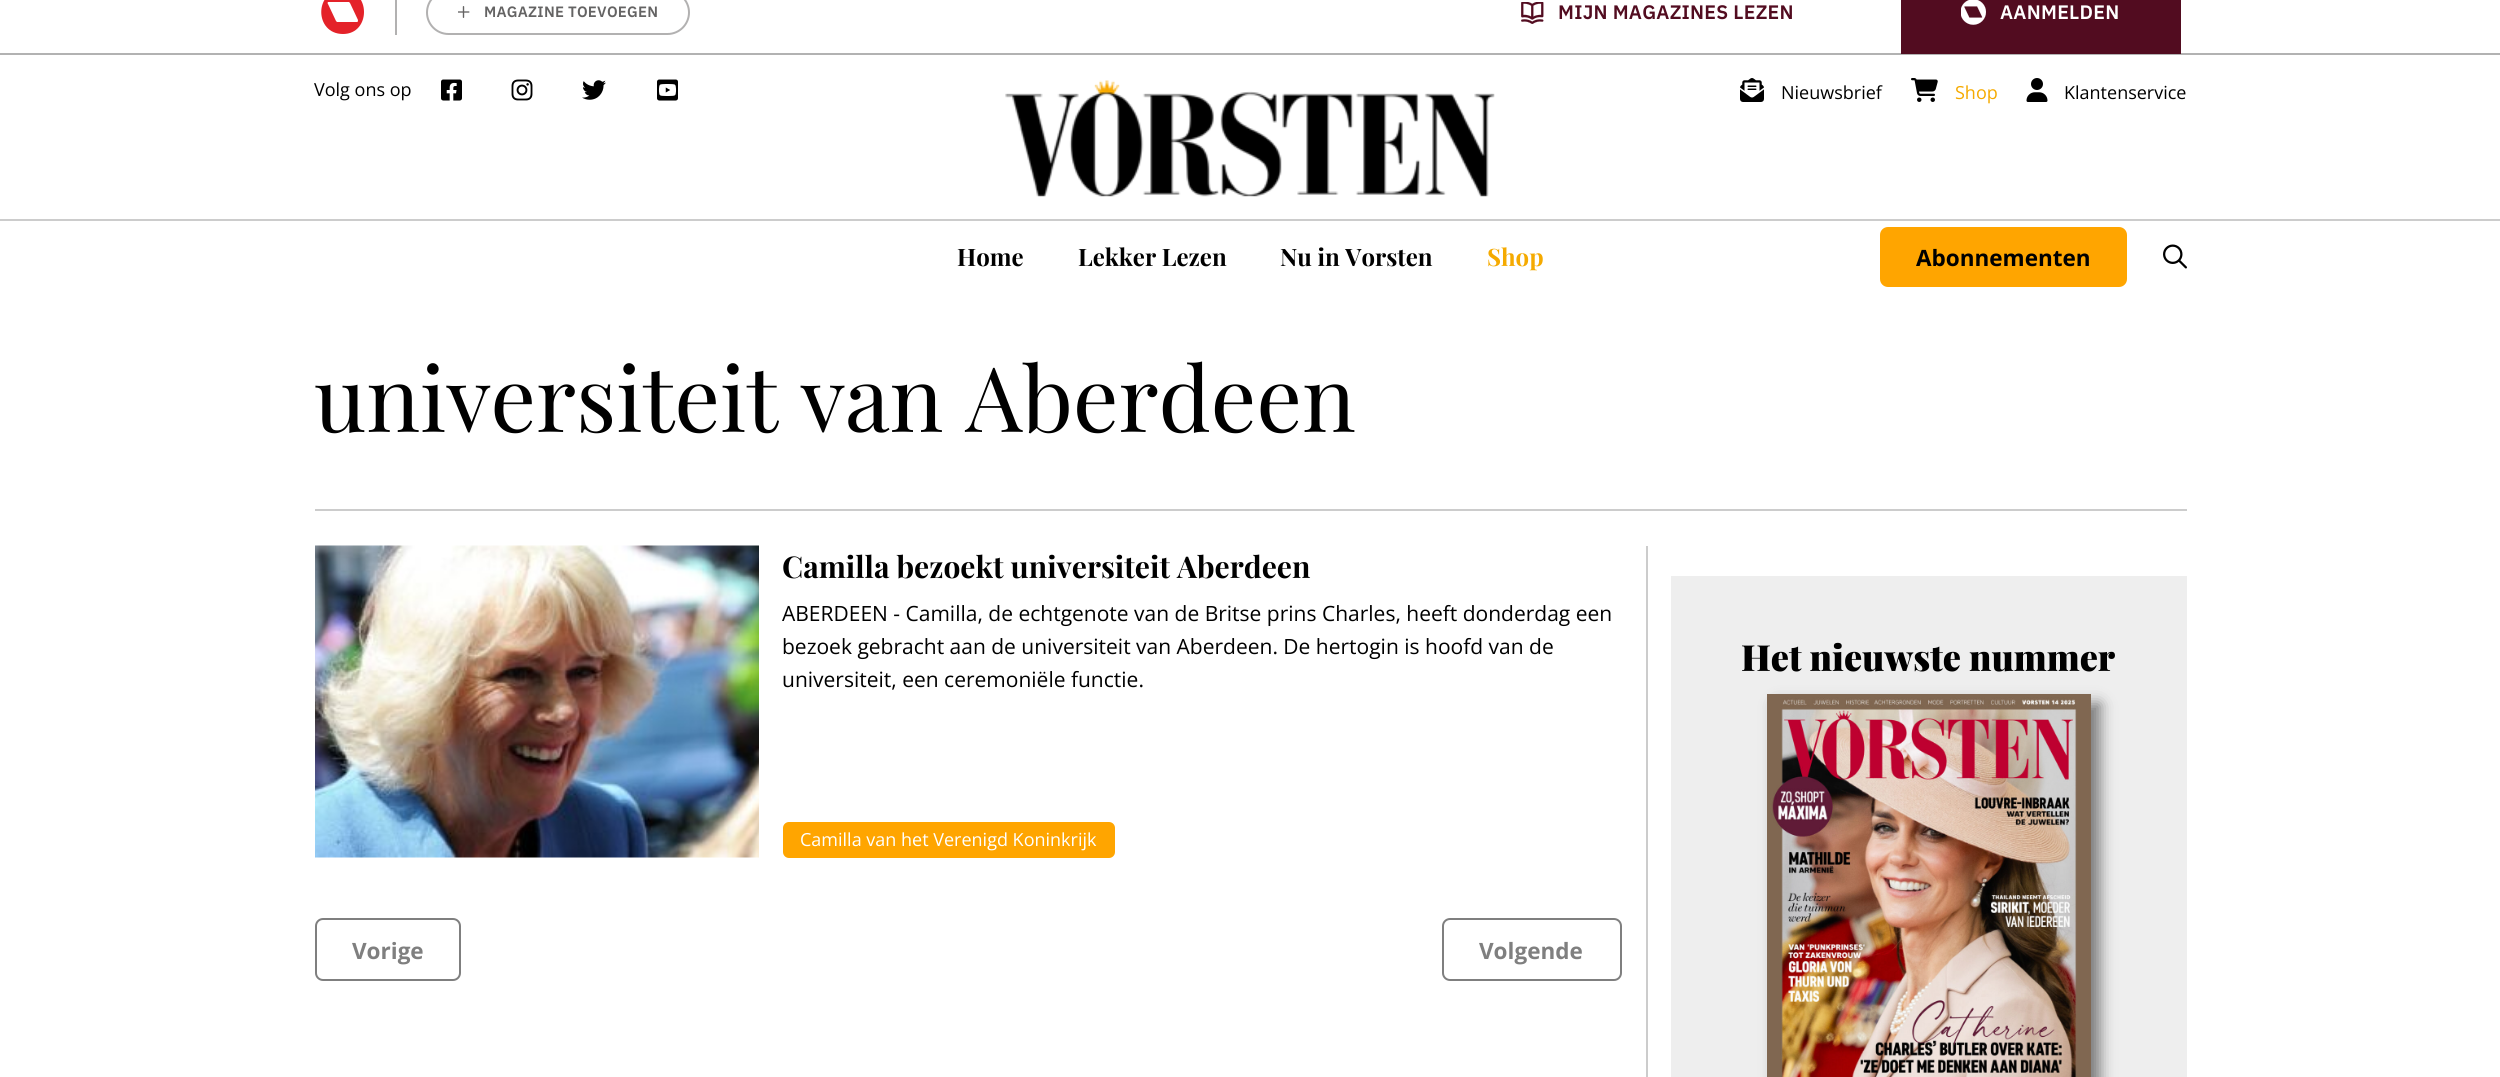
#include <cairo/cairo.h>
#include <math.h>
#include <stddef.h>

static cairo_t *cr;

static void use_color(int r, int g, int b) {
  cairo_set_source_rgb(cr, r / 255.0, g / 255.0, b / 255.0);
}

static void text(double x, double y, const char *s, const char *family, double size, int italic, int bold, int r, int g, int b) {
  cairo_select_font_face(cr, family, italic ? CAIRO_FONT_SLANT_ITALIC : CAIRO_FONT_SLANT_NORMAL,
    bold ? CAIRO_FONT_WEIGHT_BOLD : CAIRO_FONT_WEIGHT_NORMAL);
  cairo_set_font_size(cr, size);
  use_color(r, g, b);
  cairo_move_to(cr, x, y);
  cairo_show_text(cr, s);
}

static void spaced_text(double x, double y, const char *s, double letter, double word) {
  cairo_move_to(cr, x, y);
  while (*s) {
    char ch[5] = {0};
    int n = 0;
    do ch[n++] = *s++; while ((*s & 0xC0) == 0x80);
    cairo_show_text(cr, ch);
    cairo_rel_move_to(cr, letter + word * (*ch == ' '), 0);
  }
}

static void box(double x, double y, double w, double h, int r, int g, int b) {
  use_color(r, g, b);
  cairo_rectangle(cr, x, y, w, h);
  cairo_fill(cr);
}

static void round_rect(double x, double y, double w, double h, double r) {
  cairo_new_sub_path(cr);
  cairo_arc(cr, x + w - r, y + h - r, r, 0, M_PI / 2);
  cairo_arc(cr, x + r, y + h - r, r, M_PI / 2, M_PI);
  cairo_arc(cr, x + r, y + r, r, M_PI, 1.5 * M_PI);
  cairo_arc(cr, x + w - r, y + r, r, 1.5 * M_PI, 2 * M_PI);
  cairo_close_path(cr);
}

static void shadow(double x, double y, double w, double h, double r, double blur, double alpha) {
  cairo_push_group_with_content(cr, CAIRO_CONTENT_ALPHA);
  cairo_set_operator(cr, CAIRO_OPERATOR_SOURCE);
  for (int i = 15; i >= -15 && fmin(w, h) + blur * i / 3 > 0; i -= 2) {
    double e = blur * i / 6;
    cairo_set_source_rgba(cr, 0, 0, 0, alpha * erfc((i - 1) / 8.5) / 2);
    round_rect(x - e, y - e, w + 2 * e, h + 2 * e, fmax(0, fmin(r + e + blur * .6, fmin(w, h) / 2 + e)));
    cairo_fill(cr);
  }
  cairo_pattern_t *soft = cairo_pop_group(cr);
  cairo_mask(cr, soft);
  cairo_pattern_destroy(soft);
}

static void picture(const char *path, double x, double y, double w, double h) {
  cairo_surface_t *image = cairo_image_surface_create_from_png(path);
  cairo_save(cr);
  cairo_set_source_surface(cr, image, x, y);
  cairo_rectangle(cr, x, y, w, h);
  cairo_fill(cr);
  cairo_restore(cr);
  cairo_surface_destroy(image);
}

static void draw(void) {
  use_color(255, 255, 255);
  cairo_paint(cr);
  box(0, 53, 2500, 2, 178, 178, 178);
  box(395, 0, 2, 35, 178, 177, 177);
  use_color(228, 34, 41);
  cairo_set_fill_rule(cr, CAIRO_FILL_RULE_EVEN_ODD);
  cairo_new_path(cr);
  cairo_move_to(cr, 357, 22);
  cairo_line_to(cr, 337, 22);
  cairo_line_to(cr, 336, 21);
  cairo_line_to(cr, 328, 4);
  cairo_curve_to(cr, 327, 3, 328, 2, 328, 2);
  cairo_line_to(cr, 349, 2);
  cairo_line_to(cr, 350, 3);
  cairo_line_to(cr, 358, 20);
  cairo_curve_to(cr, 358, 21, 358, 22, 357, 22);
  cairo_close_path(cr);
  cairo_move_to(cr, 343, -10);
  cairo_curve_to(cr, 314, -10, 314, 34, 343, 34);
  cairo_curve_to(cr, 371, 34, 371, -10, 343, -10);
  cairo_close_path(cr);
  cairo_fill(cr);
  round_rect(427, -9, 262, 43, 21.5);
  use_color(178, 177, 177);
  cairo_stroke(cr);
  picture("img_01.png", 458, 6, 12, 12);
  picture("img_02.png", 1521, 2, 23, 22);
  box(1901, 0, 280, 54, 82, 12, 32);
  picture("img_03.png", 1961, 0, 25, 25);
  box(0, 219, 2500, 2, 204, 204, 204);
  picture("img_04.png", 441, 79, 21, 22);
  picture("img_05.png", 511, 79, 22, 22);
  picture("img_06.png", 582, 80, 24, 20);
  picture("img_07.png", 657, 79, 21, 22);
  picture("img_08.png", 1005, 80, 490, 117);
  picture("img_09.png", 1740, 78, 24, 24);
  picture("img_10.png", 1911, 78, 27, 24);
  picture("img_11.png", 2026, 78, 22, 24);
  use_color(255, 165, 0);
  round_rect(1880, 227, 247, 60, 8);
  cairo_fill(cr);
  picture("img_12.png", 2163, 244, 24, 25);
  box(315, 509, 1872, 2, 204, 204, 204);
  box(1646, 546, 2, 531, 204, 204, 204);
  picture("img_13.png", 315, 545, 444, 313);
  use_color(255, 165, 0);
  round_rect(783, 822, 332, 36, 6);
  cairo_fill(cr);
  round_rect(316, 919, 144, 61, 7);
  use_color(127, 127, 127);
  cairo_stroke(cr);
  round_rect(1443, 919, 178, 61, 7);
  cairo_stroke(cr);
  box(1671, 576, 516, 501, 238, 238, 238);
  use_color(0, 0, 0);
  shadow(1776, 704, 324, 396, 0, 7.5, 0.5);
  picture("img_14.png", 1767, 694, 324, 383);
  cairo_select_font_face(cr, "IBM Plex Sans SemiBold", CAIRO_FONT_SLANT_NORMAL, CAIRO_FONT_WEIGHT_NORMAL);
  cairo_set_font_size(cr, 15);
  use_color(100, 99, 99);
  spaced_text(484, 17, "MAGAZINE TOEVOEGEN", 0.25, 0);
  cairo_set_font_size(cr, 19.5);
  use_color(82, 12, 32);
  spaced_text(1558, 19, "MIJN MAGAZINES LEZEN", 0.25, 0);
  use_color(255, 255, 255);
  spaced_text(2000, 19, "AANMELDEN", 0.25, 0);
  text(314, 96, "Volg ons op", "Open Sans", 18, 0, 0, 0, 0, 0);
  text(1781, 99, "Nieuwsbrief", "Open Sans", 18, 0, 0, 0, 0, 0);
  text(1955, 99, "Shop", "Open Sans", 18, 0, 0, 245, 170, 0);
  text(2064, 99, "Klantenservice", "Open Sans", 18, 0, 0, 0, 0, 0);
  text(957, 266, "Home", "Playfair Display", 24, 0, 1, 0, 0, 0);
  text(1078, 266, "Lekker Lezen", "Playfair Display", 24, 0, 1, 0, 0, 0);
  text(1280, 266, "Nu in Vorsten", "Playfair Display", 24, 0, 1, 0, 0, 0);
  text(1487, 266, "Shop", "Playfair Display", 24, 0, 1, 245, 170, 0);
  text(1916, 266, "Abonnementen", "Open Sans", 22.5, 0, 1, 0, 0, 0);
  text(314, 432, "universiteit van Aberdeen", "Playfair Display", 90, 0, 0, 0, 0, 0);
  text(782, 578, "Camilla bezoekt universiteit Aberdeen", "Playfair Display", 30, 0, 1, 0, 0, 0);
  text(782, 621, "ABERDEEN - Camilla, de echtgenote van de Britse prins Charles, heeft donderdag een", "Open Sans", 21, 0, 0, 0, 0, 0);
  text(782, 654, "bezoek gebracht aan de universiteit van Aberdeen. De hertogin is hoofd van de", "Open Sans", 21, 0, 0, 0, 0, 0);
  text(782, 687, "universiteit, een ceremoniële functie.", "Open Sans", 21, 0, 0, 0, 0, 0);
  text(800, 846, "Camilla van het Verenigd Koninkrijk", "Open Sans", 18, 0, 0, 255, 255, 255);
  text(352, 959, "Vorige", "Open Sans", 22.5, 0, 1, 127, 127, 127);
  text(1479, 959, "Volgende", "Open Sans", 22.5, 0, 1, 127, 127, 127);
  text(1741, 671, "Het nieuwste nummer", "Playfair Display Black", 36, 0, 0, 0, 0, 0);
}

int main(void) {
  cairo_surface_t *surface = cairo_image_surface_create(CAIRO_FORMAT_RGB24, 2500, 1077);
  cr = cairo_create(surface);
  cairo_font_options_t *options = cairo_font_options_create();
  cairo_font_options_set_hint_metrics(options, CAIRO_HINT_METRICS_OFF);
  cairo_font_options_set_hint_style(options, CAIRO_HINT_STYLE_NONE);
  cairo_set_font_options(cr, options);
  cairo_set_miter_limit(cr, 4);
  draw();
  cairo_surface_write_to_png(surface, "out.png");
  cairo_font_options_destroy(options);
  cairo_destroy(cr);
  cairo_surface_destroy(surface);
  return 0;
}
